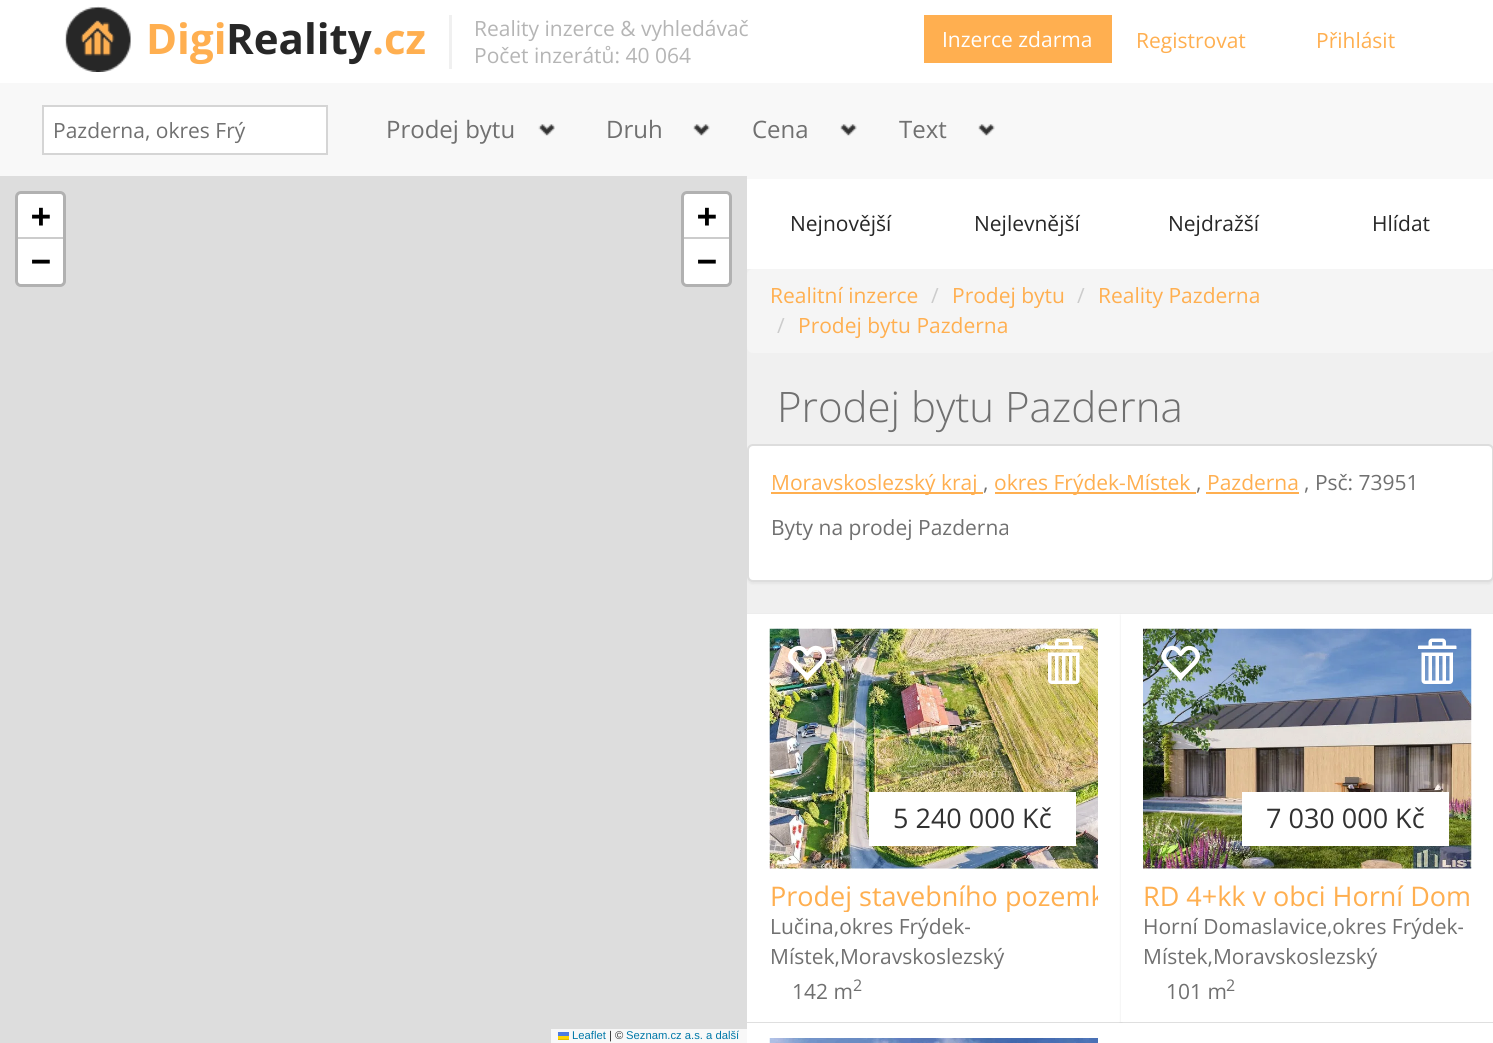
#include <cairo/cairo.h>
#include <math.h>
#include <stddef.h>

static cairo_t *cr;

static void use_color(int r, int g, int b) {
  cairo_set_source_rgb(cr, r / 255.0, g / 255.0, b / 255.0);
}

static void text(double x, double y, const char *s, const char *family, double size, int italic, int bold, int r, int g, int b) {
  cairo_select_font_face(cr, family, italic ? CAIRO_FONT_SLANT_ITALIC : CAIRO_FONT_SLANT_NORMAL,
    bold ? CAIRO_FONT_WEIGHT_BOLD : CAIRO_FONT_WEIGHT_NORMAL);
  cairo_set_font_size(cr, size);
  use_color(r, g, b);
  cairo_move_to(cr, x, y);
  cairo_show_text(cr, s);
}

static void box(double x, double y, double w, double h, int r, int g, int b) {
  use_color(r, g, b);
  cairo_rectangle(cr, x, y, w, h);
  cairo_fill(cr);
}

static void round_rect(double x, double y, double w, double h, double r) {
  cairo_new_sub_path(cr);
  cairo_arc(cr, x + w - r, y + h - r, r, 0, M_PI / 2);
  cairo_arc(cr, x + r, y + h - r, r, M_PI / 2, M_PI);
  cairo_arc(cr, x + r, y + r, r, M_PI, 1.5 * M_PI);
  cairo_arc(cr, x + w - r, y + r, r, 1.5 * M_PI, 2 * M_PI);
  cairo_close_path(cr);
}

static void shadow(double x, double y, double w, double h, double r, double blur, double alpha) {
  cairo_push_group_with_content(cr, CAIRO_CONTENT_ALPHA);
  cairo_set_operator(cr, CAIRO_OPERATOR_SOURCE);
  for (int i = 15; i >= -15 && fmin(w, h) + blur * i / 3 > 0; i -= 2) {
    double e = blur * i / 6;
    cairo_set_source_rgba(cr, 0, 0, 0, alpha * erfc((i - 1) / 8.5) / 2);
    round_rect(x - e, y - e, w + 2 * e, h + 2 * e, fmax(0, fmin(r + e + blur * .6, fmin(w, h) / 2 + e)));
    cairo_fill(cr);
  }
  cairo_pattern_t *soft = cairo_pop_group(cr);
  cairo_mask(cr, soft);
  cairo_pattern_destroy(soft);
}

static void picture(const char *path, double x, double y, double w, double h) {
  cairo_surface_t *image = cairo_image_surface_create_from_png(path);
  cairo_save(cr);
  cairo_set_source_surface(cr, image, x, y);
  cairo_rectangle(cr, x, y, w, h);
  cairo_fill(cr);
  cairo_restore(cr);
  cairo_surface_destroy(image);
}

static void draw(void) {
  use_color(240, 240, 240);
  cairo_paint(cr);
  box(0, 0, 1493, 83, 255, 255, 255);
  picture("img_01.png", 65, 6, 66, 66);
  box(449, 15, 3, 54, 240, 240, 240);
  box(924, 15, 188, 48, 255, 175, 80);
  box(0, 83, 1493, 93, 248, 248, 248);
  box(44, 107, 282, 46, 255, 255, 255);
  box(42, 105, 285, 2, 213, 213, 213);
  box(42, 153, 219, 2, 213, 213, 213);
  box(42, 105, 2, 50, 213, 213, 213);
  box(326, 105, 2, 50, 213, 213, 213);
  box(260, 153, 67, 2, 213, 213, 213);
  picture("img_02.png", 538, 124, 17, 12);
  picture("img_03.png", 693, 124, 17, 12);
  picture("img_03.png", 840, 124, 17, 12);
  picture("img_03.png", 978, 124, 17, 12);
  use_color(0, 0, 0);
  shadow(747, 446, 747, 138, 6, 1, 0.05);
  shadow(747, 615, 374, 408, 0, 1, 0.1);
  box(0, 176, 747, 867, 221, 221, 221);
  round_rect(16.5, 192.5, 48, 93, 4.5);
  use_color(177, 177, 177);
  cairo_set_line_width(cr, 3);
  cairo_stroke(cr);
  use_color(255, 255, 255);
  cairo_new_path(cr);
  cairo_move_to(cr, 21, 194);
  cairo_line_to(cr, 60, 194);
  cairo_curve_to(cr, 61.5, 194, 63, 195.5, 63, 197);
  cairo_line_to(cr, 63, 239);
  cairo_line_to(cr, 18, 239);
  cairo_line_to(cr, 18, 197);
  cairo_curve_to(cr, 18, 195.5, 19.5, 194, 21, 194);
  cairo_close_path(cr);
  cairo_fill(cr);
  box(18, 237, 45, 2, 204, 204, 204);
  use_color(255, 255, 255);
  cairo_new_path(cr);
  cairo_move_to(cr, 18, 239);
  cairo_line_to(cr, 63, 239);
  cairo_line_to(cr, 63, 281);
  cairo_curve_to(cr, 63, 282.5, 61.5, 284, 60, 284);
  cairo_line_to(cr, 21, 284);
  cairo_curve_to(cr, 19.5, 284, 18, 282.5, 18, 281);
  cairo_close_path(cr);
  cairo_fill(cr);
  round_rect(682.5, 192.5, 48, 93, 4.5);
  use_color(177, 177, 177);
  cairo_stroke(cr);
  use_color(255, 255, 255);
  cairo_new_path(cr);
  cairo_move_to(cr, 687, 194);
  cairo_line_to(cr, 726, 194);
  cairo_curve_to(cr, 727.5, 194, 729, 195.5, 729, 197);
  cairo_line_to(cr, 729, 239);
  cairo_line_to(cr, 684, 239);
  cairo_line_to(cr, 684, 197);
  cairo_curve_to(cr, 684, 195.5, 685.5, 194, 687, 194);
  cairo_close_path(cr);
  cairo_fill(cr);
  box(684, 237, 45, 2, 204, 204, 204);
  use_color(255, 255, 255);
  cairo_new_path(cr);
  cairo_move_to(cr, 684, 239);
  cairo_line_to(cr, 729, 239);
  cairo_line_to(cr, 729, 281);
  cairo_curve_to(cr, 729, 282.5, 727.5, 284, 726, 284);
  cairo_line_to(cr, 687, 284);
  cairo_curve_to(cr, 685.5, 284, 684, 282.5, 684, 281);
  cairo_close_path(cr);
  cairo_fill(cr);
  box(551, 1029, 196, 14, 248, 248, 248);
  box(558, 1032, 11, 4, 76, 123, 225);
  box(558, 1036, 11, 3, 255, 213, 0);
  box(558, 1039, 11, 1, 224, 188, 0);
  box(747, 179, 746, 90, 255, 255, 255);
  box(747, 176, 746, 3, 248, 248, 248);
  use_color(245, 245, 245);
  round_rect(747, 269, 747, 84, 6);
  cairo_fill(cr);
  use_color(255, 255, 255);
  round_rect(748, 445, 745, 136, 5);
  cairo_fill_preserve(cr);
  use_color(221, 221, 221);
  cairo_set_line_width(cr, 2);
  cairo_stroke(cr);
  box(771, 492, 212, 2, 255, 175, 80);
  box(995, 492, 201, 2, 255, 175, 80);
  box(1206, 492, 93, 2, 255, 175, 80);
  box(747, 614, 374, 408, 255, 255, 255);
  picture("img_06.png", 769, 628, 329, 241);
  picture("img_04.png", 788, 645, 39, 36);
  picture("img_05.png", 1044, 638, 39, 46);
  box(869, 792, 207, 54, 255, 255, 255);
  use_color(0, 0, 0);
  shadow(1121, 615, 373, 408, 0, 1, 0.1);
  box(1121, 614, 372, 408, 255, 255, 255);
  picture("img_09.png", 1143, 628, 329, 241);
  picture("img_07.png", 1161, 645, 39, 36);
  picture("img_08.png", 1418, 638, 39, 46);
  box(1242, 792, 207, 54, 255, 255, 255);
  box(747, 1023, 746, 20, 255, 255, 255);
  picture("img_10.png", 769, 1038, 329, 5);
  text(146, 54, "Digi", "Open Sans", 42, 0, 1, 255, 175, 80);
  text(226, 54, "Reality", "Open Sans", 42, 0, 1, 39, 39, 39);
  text(372, 54, ".cz", "Open Sans", 42, 0, 1, 255, 175, 80);
  text(474, 36, "Reality inzerce & vyhledávač", "Open Sans", 21, 0, 0, 181, 181, 181);
  text(474, 63, "Počet inzerátů: 40 064", "Open Sans", 21, 0, 0, 181, 181, 181);
  text(942, 47, "Inzerce zdarma", "Open Sans", 21, 0, 0, 255, 255, 255);
  text(1136, 48, "Registrovat", "Open Sans", 21, 0, 0, 255, 175, 80);
  text(1316, 48, "Přihlásit", "Open Sans", 21, 0, 0, 255, 175, 80);
  text(53, 138, "Pazderna, okres Frý", "Open Sans", 21, 0, 0, 112, 112, 112);
  text(386, 138, "Prodej bytu", "Open Sans", 24, 0, 0, 112, 112, 112);
  text(606, 138, "Druh", "Open Sans", 24, 0, 0, 112, 112, 112);
  text(752, 138, "Cena", "Open Sans", 24, 0, 0, 112, 112, 112);
  text(899, 138, "Text", "Open Sans", 24, 0, 0, 112, 112, 112);
  text(31, 227, "+", "DejaVu Sans Mono", 33, 0, 1, 0, 0, 0);
  text(31, 272, "−", "DejaVu Sans Mono", 33, 0, 1, 0, 0, 0);
  text(697, 227, "+", "DejaVu Sans Mono", 33, 0, 1, 0, 0, 0);
  text(697, 272, "−", "DejaVu Sans Mono", 33, 0, 1, 0, 0, 0);
  text(572, 1039, "Leaflet", "Liberation Sans", 11.25, 0, 0, 0, 120, 168);
  text(609, 1039, "| ©", "Liberation Sans", 11.25, 0, 0, 49, 49, 49);
  text(626, 1039, "Seznam.cz a.s. a další", "Liberation Sans", 11.25, 0, 0, 0, 120, 168);
  text(790, 231, "Nejnovější", "Open Sans", 21, 0, 0, 39, 39, 39);
  text(974, 231, "Nejlevnější", "Open Sans", 21, 0, 0, 39, 39, 39);
  text(1168, 231, "Nejdražší", "Open Sans", 21, 0, 0, 39, 39, 39);
  text(1372, 231, "Hlídat", "Open Sans", 21, 0, 0, 39, 39, 39);
  text(770, 303, "Realitní inzerce", "Open Sans", 21, 0, 0, 255, 175, 80);
  text(931, 303, "/", "Open Sans", 21, 0, 0, 204, 204, 204);
  text(952, 303, "Prodej bytu", "Open Sans", 21, 0, 0, 255, 175, 80);
  text(1077, 303, "/", "Open Sans", 21, 0, 0, 204, 204, 204);
  text(1098, 303, "Reality Pazderna", "Open Sans", 21, 0, 0, 255, 175, 80);
  text(777, 333, "/", "Open Sans", 21, 0, 0, 204, 204, 204);
  text(798, 333, "Prodej bytu Pazderna", "Open Sans", 21, 0, 0, 255, 175, 80);
  text(777, 422, "Prodej bytu Pazderna", "Open Sans Light", 42, 0, 0, 112, 112, 112);
  text(771, 490, "Moravskoslezský kraj", "Open Sans", 21, 0, 0, 255, 175, 80);
  text(983, 490, ",", "Open Sans", 21, 0, 0, 112, 112, 112);
  text(994, 490, "okres Frýdek-Místek", "Open Sans", 21, 0, 0, 255, 175, 80);
  text(1196, 490, ",", "Open Sans", 21, 0, 0, 112, 112, 112);
  text(1207, 490, "Pazderna", "Open Sans", 21, 0, 0, 255, 175, 80);
  text(1304, 490, ", Psč: 73951", "Open Sans", 21, 0, 0, 112, 112, 112);
  text(771, 535, "Byty na prodej Pazderna", "Open Sans", 21, 0, 0, 112, 112, 112);
  text(893, 828, "5 240 000 Kč", "Open Sans", 27, 0, 0, 49, 49, 49);
  cairo_save(cr);
  cairo_rectangle(cr, 770, 876, 328, 36);
  cairo_clip(cr);
  text(770, 906, "Prodej stavebního pozemk", "Open Sans", 27, 0, 0, 255, 175, 80);
  cairo_restore(cr);
  text(770, 934, "Lučina,okres Frýdek-", "Open Sans", 21, 0, 0, 112, 112, 112);
  text(770, 964, "Místek,Moravskoslezský", "Open Sans", 21, 0, 0, 112, 112, 112);
  text(792, 999, "142 m", "Open Sans", 21, 0, 0, 112, 112, 112);
  text(853, 991, "2", "Open Sans", 16, 0, 0, 112, 112, 112);
  text(1266, 828, "7 030 000 Kč", "Open Sans", 27, 0, 0, 49, 49, 49);
  text(1143, 906, "RD 4+kk v obci Horní Dom", "Open Sans", 27, 0, 0, 255, 175, 80);
  text(1143, 934, "Horní Domaslavice,okres Frýdek-", "Open Sans", 21, 0, 0, 112, 112, 112);
  text(1143, 964, "Místek,Moravskoslezský", "Open Sans", 21, 0, 0, 112, 112, 112);
  text(1166, 999, "101 m", "Open Sans", 21, 0, 0, 112, 112, 112);
  text(1226, 991, "2", "Open Sans", 16, 0, 0, 112, 112, 112);
}

int main(void) {
  cairo_surface_t *surface = cairo_image_surface_create(CAIRO_FORMAT_RGB24, 1493, 1043);
  cr = cairo_create(surface);
  cairo_font_options_t *options = cairo_font_options_create();
  cairo_font_options_set_hint_metrics(options, CAIRO_HINT_METRICS_OFF);
  cairo_font_options_set_hint_style(options, CAIRO_HINT_STYLE_NONE);
  cairo_set_font_options(cr, options);
  cairo_set_miter_limit(cr, 4);
  draw();
  cairo_surface_write_to_png(surface, "out.png");
  cairo_font_options_destroy(options);
  cairo_destroy(cr);
  cairo_surface_destroy(surface);
  return 0;
}
